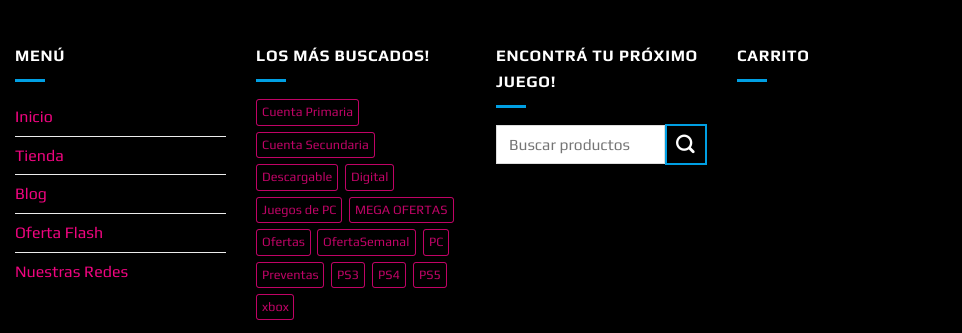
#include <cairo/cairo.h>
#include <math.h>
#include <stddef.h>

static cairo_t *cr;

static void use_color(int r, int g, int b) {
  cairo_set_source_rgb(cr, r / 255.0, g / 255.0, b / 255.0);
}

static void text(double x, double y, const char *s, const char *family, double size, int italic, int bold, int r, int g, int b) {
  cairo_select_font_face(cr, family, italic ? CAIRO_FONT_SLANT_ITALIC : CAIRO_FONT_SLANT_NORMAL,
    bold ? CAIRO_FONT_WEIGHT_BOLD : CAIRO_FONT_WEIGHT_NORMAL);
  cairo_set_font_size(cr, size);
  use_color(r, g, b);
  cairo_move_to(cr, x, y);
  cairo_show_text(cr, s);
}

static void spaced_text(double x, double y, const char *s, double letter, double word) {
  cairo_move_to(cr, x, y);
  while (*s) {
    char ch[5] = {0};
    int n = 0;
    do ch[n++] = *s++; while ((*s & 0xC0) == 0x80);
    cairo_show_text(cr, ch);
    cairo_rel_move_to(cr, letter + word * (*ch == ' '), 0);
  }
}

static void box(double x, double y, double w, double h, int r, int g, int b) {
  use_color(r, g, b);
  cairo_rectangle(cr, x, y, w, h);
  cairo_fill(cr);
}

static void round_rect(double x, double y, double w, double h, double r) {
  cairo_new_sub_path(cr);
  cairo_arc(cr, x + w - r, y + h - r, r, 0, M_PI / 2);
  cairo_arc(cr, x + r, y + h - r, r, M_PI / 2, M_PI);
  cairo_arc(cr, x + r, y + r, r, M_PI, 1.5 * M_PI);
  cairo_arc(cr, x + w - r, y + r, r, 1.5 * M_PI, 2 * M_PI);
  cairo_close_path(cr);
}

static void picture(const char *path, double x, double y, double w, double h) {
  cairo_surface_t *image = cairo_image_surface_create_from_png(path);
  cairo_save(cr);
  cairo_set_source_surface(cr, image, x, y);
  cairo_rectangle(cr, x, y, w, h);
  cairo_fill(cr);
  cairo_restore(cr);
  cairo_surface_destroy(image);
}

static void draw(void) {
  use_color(0, 0, 0);
  cairo_paint(cr);
  box(15, 79, 30, 3, 0, 159, 227);
  box(15, 136, 211, 1, 236, 236, 236);
  box(15, 174, 211, 1, 236, 236, 236);
  box(15, 213, 211, 1, 236, 236, 236);
  box(15, 252, 211, 1, 236, 236, 236);
  box(256, 79, 30, 3, 0, 159, 227);
  round_rect(256.5, 99.5, 102, 26, 2.5);
  use_color(192, 3, 102);
  cairo_set_line_width(cr, 1);
  cairo_stroke(cr);
  round_rect(256.5, 132.5, 118, 25, 2.5);
  cairo_stroke(cr);
  round_rect(256.5, 164.5, 81, 26, 2.5);
  cairo_stroke(cr);
  round_rect(345.5, 164.5, 48, 26, 2.5);
  cairo_stroke(cr);
  round_rect(256.5, 197.5, 85, 25, 2.5);
  cairo_stroke(cr);
  round_rect(349.5, 197.5, 104, 25, 2.5);
  cairo_stroke(cr);
  round_rect(256.5, 229.5, 54, 26, 2.5);
  cairo_stroke(cr);
  round_rect(317.5, 229.5, 98, 26, 2.5);
  cairo_stroke(cr);
  round_rect(423.5, 229.5, 25, 26, 2.5);
  cairo_stroke(cr);
  round_rect(256.5, 262.5, 67, 25, 2.5);
  cairo_stroke(cr);
  round_rect(331.5, 262.5, 33, 25, 2.5);
  cairo_stroke(cr);
  round_rect(372.5, 262.5, 33, 25, 2.5);
  cairo_stroke(cr);
  round_rect(413.5, 262.5, 33, 25, 2.5);
  cairo_stroke(cr);
  round_rect(256.5, 294.5, 37, 25, 2.5);
  cairo_stroke(cr);
  box(496, 105, 30, 3, 0, 159, 227);
  use_color(255, 255, 255);
  cairo_rectangle(cr, 496.5, 125.5, 168, 38);
  cairo_fill_preserve(cr);
  use_color(221, 221, 221);
  cairo_stroke(cr);
  cairo_rectangle(cr, 666, 125, 40, 39);
  use_color(0, 159, 227);
  cairo_set_line_width(cr, 2);
  cairo_stroke(cr);
  picture("img_01.png", 676, 134, 19, 20);
  box(737, 79, 30, 3, 0, 159, 227);
  cairo_select_font_face(cr, "Play", CAIRO_FONT_SLANT_NORMAL, CAIRO_FONT_WEIGHT_BOLD);
  cairo_set_font_size(cr, 16);
  use_color(255, 255, 255);
  spaced_text(15, 61, "MENÚ", 0.75, 0);
  text(15, 122, "Inicio", "Play", 16, 0, 0, 240, 4, 127);
  text(15, 161, "Tienda", "Play", 16, 0, 0, 240, 4, 127);
  text(15, 199, "Blog", "Play", 16, 0, 0, 240, 4, 127);
  text(15, 238, "Oferta Flash", "Play", 16, 0, 0, 240, 4, 127);
  text(15, 277, "Nuestras Redes", "Play", 16, 0, 0, 240, 4, 127);
  cairo_select_font_face(cr, "Play", CAIRO_FONT_SLANT_NORMAL, CAIRO_FONT_WEIGHT_BOLD);
  use_color(255, 255, 255);
  spaced_text(256, 61, "LOS MÁS BUSCADOS!", 0.75, 0);
  text(262, 116, "Cuenta Primaria", "Play", 12.75, 0, 0, 192, 3, 102);
  text(262, 149, "Cuenta Secundaria", "Play", 12.75, 0, 0, 192, 3, 102);
  text(262, 181, "Descargable", "Play", 12.75, 0, 0, 192, 3, 102);
  text(351, 181, "Digital", "Play", 12.75, 0, 0, 192, 3, 102);
  text(262, 214, "Juegos de PC", "Play", 12.75, 0, 0, 192, 3, 102);
  text(355, 214, "MEGA OFERTAS", "Play", 12.75, 0, 0, 192, 3, 102);
  text(262, 246, "Ofertas", "Play", 12.75, 0, 0, 192, 3, 102);
  text(323, 246, "OfertaSemanal", "Play", 12.75, 0, 0, 192, 3, 102);
  text(429, 246, "PC", "Play", 12.75, 0, 0, 192, 3, 102);
  text(262, 279, "Preventas", "Play", 12.75, 0, 0, 192, 3, 102);
  text(337, 279, "PS3", "Play", 12.75, 0, 0, 192, 3, 102);
  text(378, 279, "PS4", "Play", 12.75, 0, 0, 192, 3, 102);
  text(419, 279, "PS5", "Play", 12.75, 0, 0, 192, 3, 102);
  text(262, 311, "xbox", "Play", 12.75, 0, 0, 192, 3, 102);
  cairo_select_font_face(cr, "Play", CAIRO_FONT_SLANT_NORMAL, CAIRO_FONT_WEIGHT_BOLD);
  cairo_set_font_size(cr, 16);
  use_color(255, 255, 255);
  spaced_text(496, 61, "ENCONTRÁ TU PRÓXIMO", 0.75, 0);
  spaced_text(496, 87, "JUEGO!", 0.75, 0);
  text(509, 150, "Buscar productos", "Play", 15.5, 0, 0, 117, 117, 117);
  cairo_select_font_face(cr, "Play", CAIRO_FONT_SLANT_NORMAL, CAIRO_FONT_WEIGHT_BOLD);
  cairo_set_font_size(cr, 16);
  use_color(255, 255, 255);
  spaced_text(737, 61, "CARRITO", 0.75, 0);
}

int main(void) {
  cairo_surface_t *surface = cairo_image_surface_create(CAIRO_FORMAT_RGB24, 962, 333);
  cr = cairo_create(surface);
  cairo_font_options_t *options = cairo_font_options_create();
  cairo_font_options_set_hint_metrics(options, CAIRO_HINT_METRICS_OFF);
  cairo_font_options_set_hint_style(options, CAIRO_HINT_STYLE_NONE);
  cairo_set_font_options(cr, options);
  cairo_set_miter_limit(cr, 4);
  draw();
  cairo_surface_write_to_png(surface, "out.png");
  cairo_font_options_destroy(options);
  cairo_destroy(cr);
  cairo_surface_destroy(surface);
  return 0;
}
